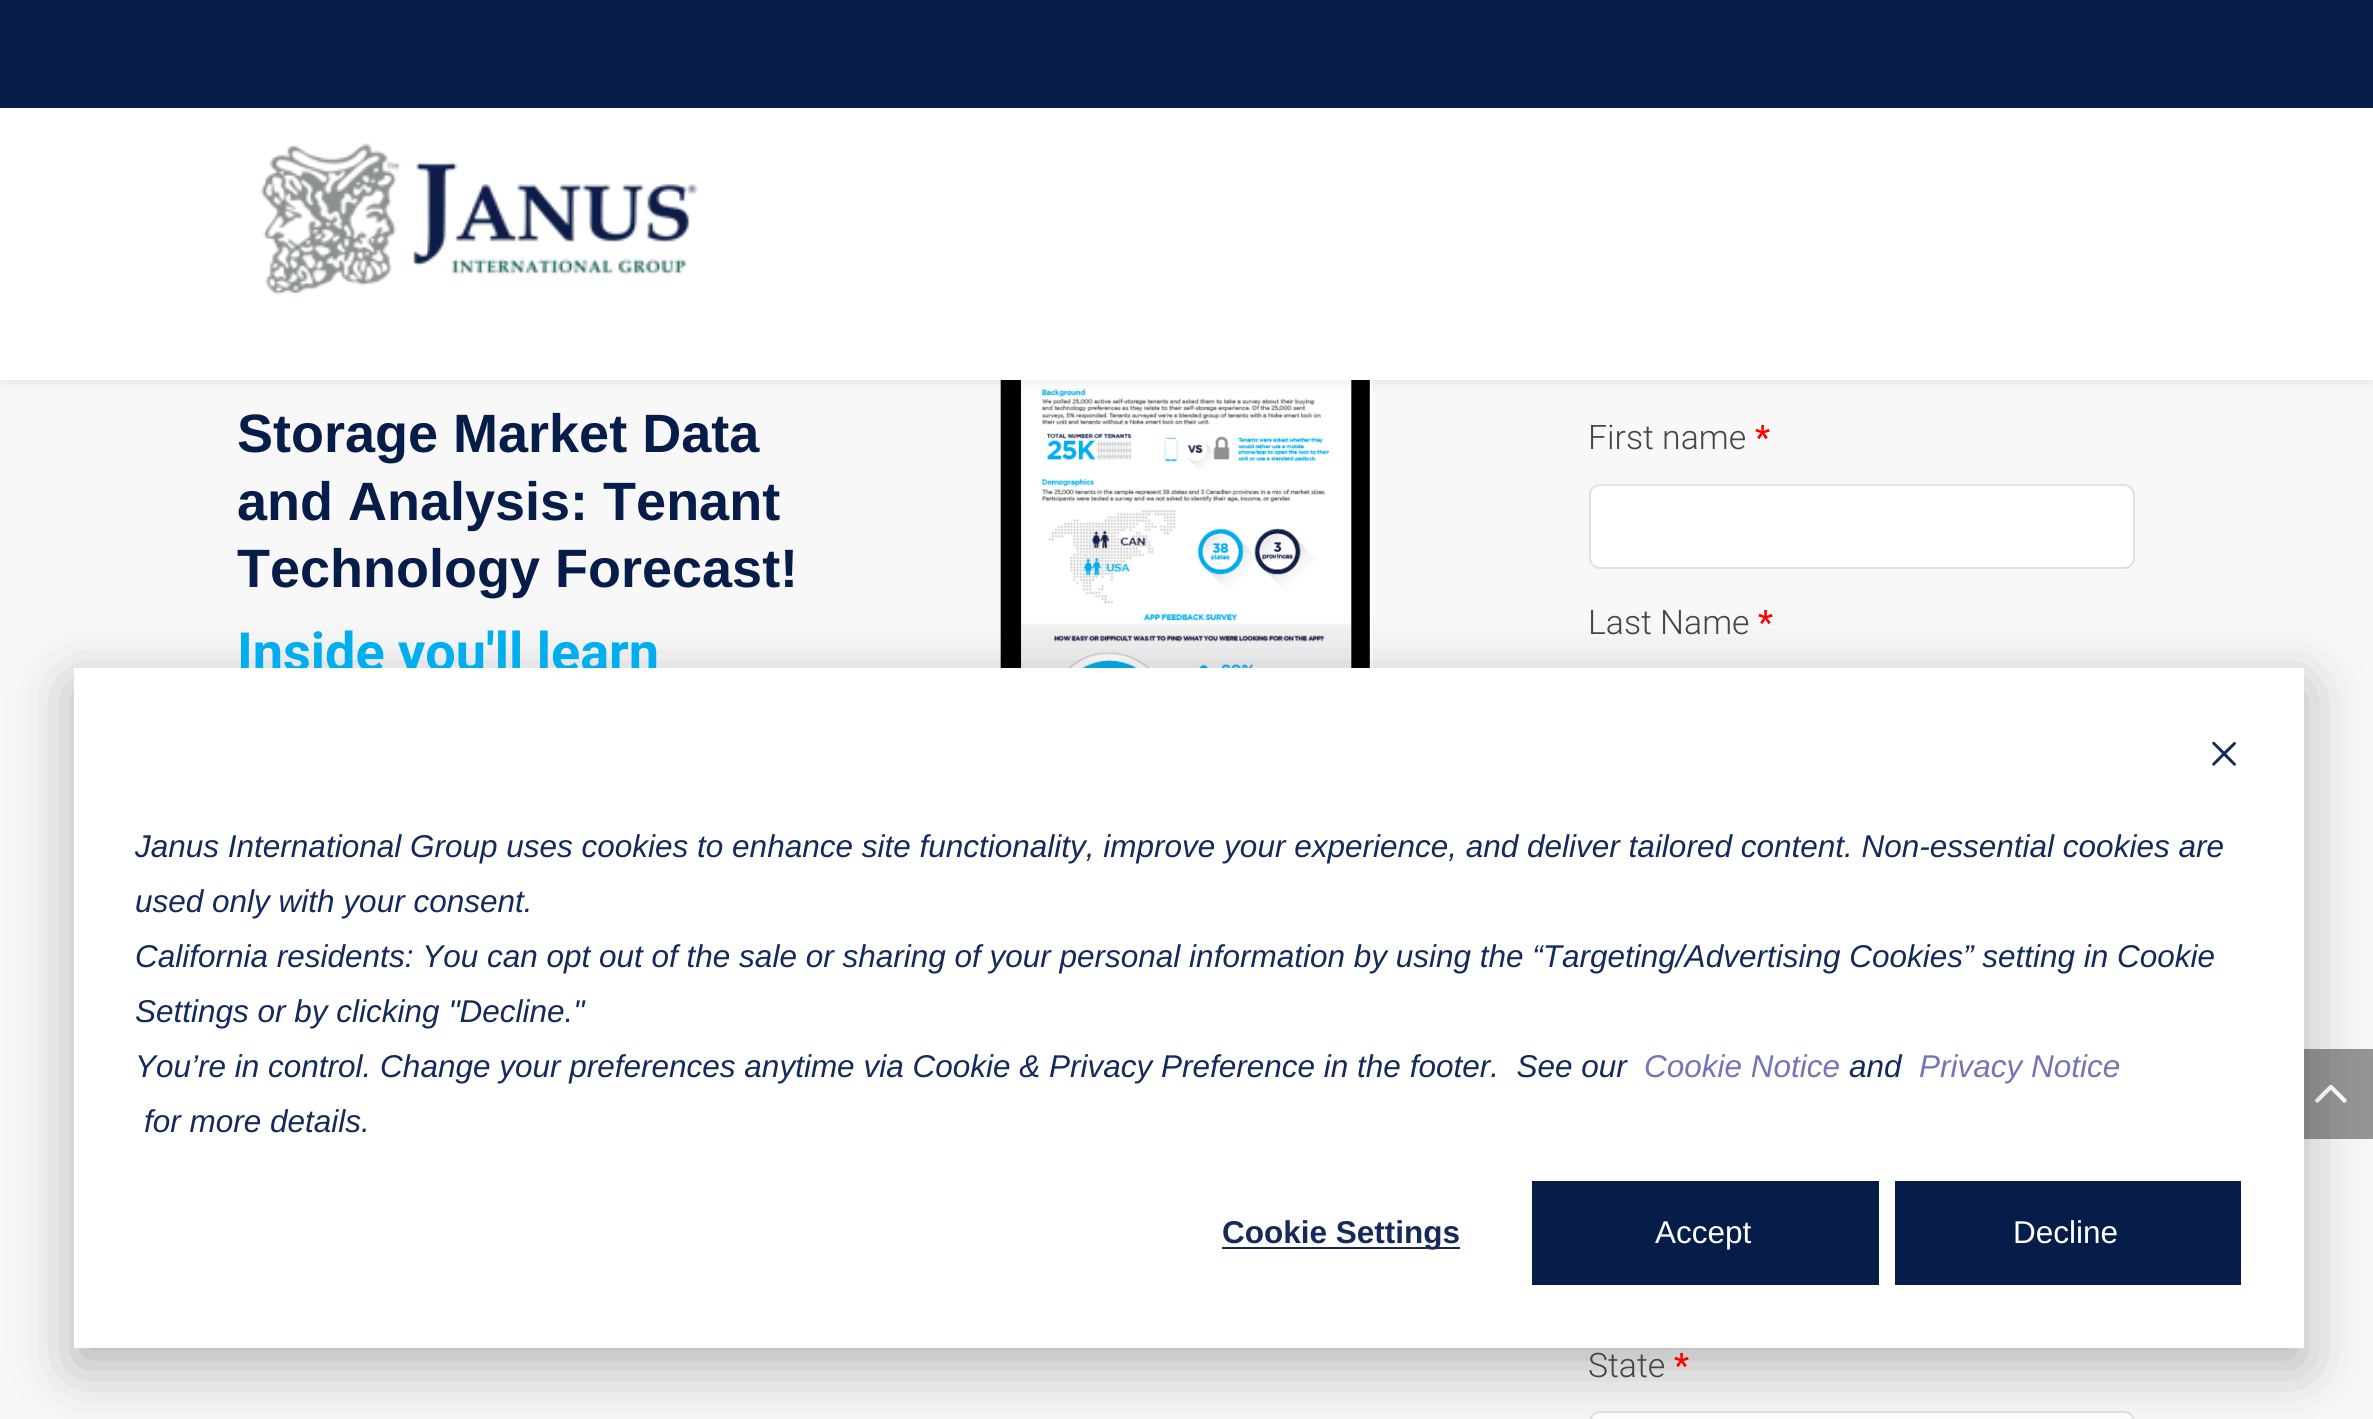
#include <cairo/cairo.h>
#include <math.h>
#include <stddef.h>

static cairo_t *cr;

static void use_color(int r, int g, int b) {
  cairo_set_source_rgb(cr, r / 255.0, g / 255.0, b / 255.0);
}

static void text(double x, double y, const char *s, const char *family, double size, int italic, int bold, int r, int g, int b) {
  cairo_select_font_face(cr, family, italic ? CAIRO_FONT_SLANT_ITALIC : CAIRO_FONT_SLANT_NORMAL,
    bold ? CAIRO_FONT_WEIGHT_BOLD : CAIRO_FONT_WEIGHT_NORMAL);
  cairo_set_font_size(cr, size);
  use_color(r, g, b);
  cairo_move_to(cr, x, y);
  cairo_show_text(cr, s);
}

static void box(double x, double y, double w, double h, int r, int g, int b) {
  use_color(r, g, b);
  cairo_rectangle(cr, x, y, w, h);
  cairo_fill(cr);
}

static void round_rect(double x, double y, double w, double h, double r) {
  cairo_new_sub_path(cr);
  cairo_arc(cr, x + w - r, y + h - r, r, 0, M_PI / 2);
  cairo_arc(cr, x + r, y + h - r, r, M_PI / 2, M_PI);
  cairo_arc(cr, x + r, y + r, r, M_PI, 1.5 * M_PI);
  cairo_arc(cr, x + w - r, y + r, r, 1.5 * M_PI, 2 * M_PI);
  cairo_close_path(cr);
}

static void shadow(double x, double y, double w, double h, double r, double blur, double alpha) {
  cairo_push_group_with_content(cr, CAIRO_CONTENT_ALPHA);
  cairo_set_operator(cr, CAIRO_OPERATOR_SOURCE);
  for (int i = 15; i >= -15 && fmin(w, h) + blur * i / 3 > 0; i -= 2) {
    double e = blur * i / 6;
    cairo_set_source_rgba(cr, 0, 0, 0, alpha * erfc((i - 1) / 8.5) / 2);
    round_rect(x - e, y - e, w + 2 * e, h + 2 * e, fmax(0, fmin(r + e + blur * .6, fmin(w, h) / 2 + e)));
    cairo_fill(cr);
  }
  cairo_pattern_t *soft = cairo_pop_group(cr);
  cairo_mask(cr, soft);
  cairo_pattern_destroy(soft);
}

static void picture(const char *path, double x, double y, double w, double h) {
  cairo_surface_t *image = cairo_image_surface_create_from_png(path);
  cairo_save(cr);
  cairo_set_source_surface(cr, image, x, y);
  cairo_rectangle(cr, x, y, w, h);
  cairo_fill(cr);
  cairo_restore(cr);
  cairo_surface_destroy(image);
}

static void draw(void) {
  use_color(248, 248, 248);
  cairo_paint(cr);
  picture("img_02.png", 1000, 380, 373, 288);
  use_color(0, 0, 0);
  shadow(0, 0, 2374, 380, 0, 8, 0.1);
  box(0, 108, 2373, 272, 255, 255, 255);
  box(0, 0, 2373, 108, 7, 29, 73);
  picture("img_01.png", 260, 143, 438, 153);
  use_color(255, 255, 255);
  round_rect(1590, 485, 544, 83, 10);
  cairo_fill_preserve(cr);
  use_color(225, 225, 225);
  cairo_stroke(cr);
  use_color(255, 255, 255);
  round_rect(1590, 1412, 544, 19, 10);
  cairo_fill_preserve(cr);
  use_color(225, 225, 225);
  cairo_stroke(cr);
  box(2304, 1049, 69, 90, 149, 149, 149);
  picture("img_04.png", 2315, 1084, 32, 19);
  use_color(0, 0, 0);
  shadow(74, 686, 2230, 680, 0, 31.5, 0.28);
  text(237, 452, "Storage Market Data", "Liberation Sans", 54, 0, 1, 7, 29, 73);
  text(237, 520, "and Analysis: Tenant", "Liberation Sans", 54, 0, 1, 7, 29, 73);
  text(237, 587, "Technology Forecast!", "Liberation Sans", 54, 0, 1, 7, 29, 73);
  text(237, 671, "Inside you'll learn", "Roboto", 54, 0, 1, 0, 174, 239);
  text(1588, 449, "First name", "Roboto Light", 33.75, 0, 0, 69, 69, 69);
  text(1755, 449, "*", "Roboto Medium", 33.75, 0, 0, 255, 0, 0);
  text(1588, 634, "Last Name", "Roboto Light", 33.75, 0, 0, 69, 69, 69);
  text(1758, 634, "*", "Roboto Medium", 33.75, 0, 0, 255, 0, 0);
  text(1588, 1377, "State", "Roboto Light", 33.75, 0, 0, 69, 69, 69);
  text(1674, 1377, "*", "Roboto Medium", 33.75, 0, 0, 255, 0, 0);
  box(74, 668, 2230, 680, 255, 255, 255);
  picture("img_03.png", 2212, 741, 24, 25);
  text(135, 857, "Janus International Group uses cookies to enhance site functionality, improve your experience, and deliver tailored content. Non-essential cookies are", "Liberation Sans", 31.5, 1, 0, 21, 41, 90);
  text(135, 912, "used only with your consent.", "Liberation Sans", 31.5, 1, 0, 21, 41, 90);
  text(135, 967, "California residents: You can opt out of the sale or sharing of your personal information by using the “Targeting/Advertising Cookies” setting in Cookie", "Liberation Sans", 31.5, 1, 0, 21, 41, 90);
  text(135, 1022, "Settings or by clicking \"Decline.\"", "Liberation Sans", 31.5, 1, 0, 21, 41, 90);
  text(135, 1077, "You’re in control. Change your preferences anytime via Cookie & Privacy Preference in the footer.  See our", "Liberation Sans", 31.5, 1, 0, 21, 41, 90);
  text(1644, 1077, "Cookie Notice", "Liberation Sans", 31.5, 1, 0, 119, 116, 182);
  text(1849, 1077, "and", "Liberation Sans", 31.5, 1, 0, 21, 41, 90);
  text(1919, 1077, "Privacy Notice", "Liberation Sans", 31.5, 1, 0, 119, 116, 182);
  text(144, 1132, "for more details.", "Liberation Sans", 31.5, 1, 0, 21, 41, 90);
  box(1222, 1247, 238, 2, 21, 41, 90);
  text(1222, 1243, "Cookie Settings", "Liberation Sans", 31.5, 0, 1, 21, 41, 90);
  box(1532, 1181, 347, 104, 7, 29, 73);
  text(1655, 1243, "Accept", "Liberation Sans", 31.5, 0, 0, 255, 255, 255);
  box(1895, 1181, 346, 104, 7, 29, 73);
  text(2013, 1243, "Decline", "Liberation Sans", 31.5, 0, 0, 255, 255, 255);
}

int main(void) {
  cairo_surface_t *surface = cairo_image_surface_create(CAIRO_FORMAT_RGB24, 2373, 1419);
  cr = cairo_create(surface);
  cairo_font_options_t *options = cairo_font_options_create();
  cairo_font_options_set_hint_metrics(options, CAIRO_HINT_METRICS_OFF);
  cairo_font_options_set_hint_style(options, CAIRO_HINT_STYLE_NONE);
  cairo_set_font_options(cr, options);
  cairo_set_miter_limit(cr, 4);
  draw();
  cairo_surface_write_to_png(surface, "out.png");
  cairo_font_options_destroy(options);
  cairo_destroy(cr);
  cairo_surface_destroy(surface);
  return 0;
}
